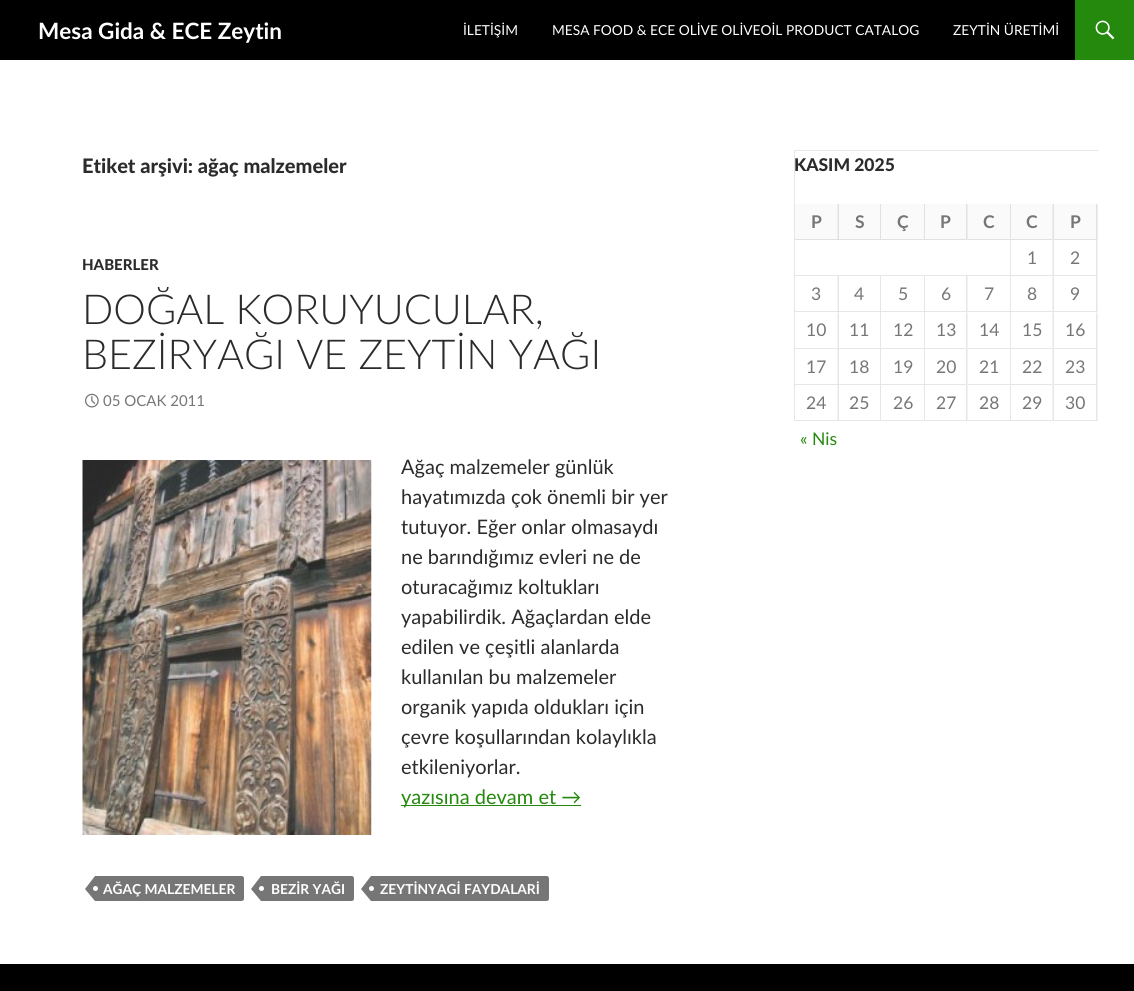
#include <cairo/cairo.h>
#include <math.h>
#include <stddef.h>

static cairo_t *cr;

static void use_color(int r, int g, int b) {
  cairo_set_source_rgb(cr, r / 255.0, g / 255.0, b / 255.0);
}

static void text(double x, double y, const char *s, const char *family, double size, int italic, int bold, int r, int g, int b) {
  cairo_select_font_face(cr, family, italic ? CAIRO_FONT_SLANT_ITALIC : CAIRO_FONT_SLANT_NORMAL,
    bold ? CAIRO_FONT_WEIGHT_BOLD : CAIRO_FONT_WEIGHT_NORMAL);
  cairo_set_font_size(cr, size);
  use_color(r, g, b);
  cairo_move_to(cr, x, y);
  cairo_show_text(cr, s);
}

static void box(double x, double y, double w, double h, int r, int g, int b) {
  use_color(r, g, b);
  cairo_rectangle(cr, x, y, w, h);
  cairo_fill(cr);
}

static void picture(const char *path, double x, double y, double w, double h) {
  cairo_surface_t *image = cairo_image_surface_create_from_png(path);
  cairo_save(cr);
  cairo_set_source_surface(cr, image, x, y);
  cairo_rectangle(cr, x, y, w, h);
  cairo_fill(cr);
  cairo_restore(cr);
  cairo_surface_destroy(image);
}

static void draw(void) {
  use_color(255, 255, 255);
  cairo_paint(cr);
  box(0, 0, 1075, 60, 0, 0, 0);
  box(1075, 0, 59, 60, 36, 137, 13);
  picture("img_01.png", 1095, 20, 20, 20);
  picture("img_02.png", 85, 393, 14, 15);
  picture("img_03.png", 82, 460, 290, 375);
  box(401, 805, 180, 1, 36, 137, 13);
  use_color(118, 118, 118);
  cairo_new_path(cr);
  cairo_move_to(cr, 95, 876);
  cairo_line_to(cr, 241.5, 876);
  cairo_curve_to(cr, 243, 876, 244, 877, 244, 878.5);
  cairo_line_to(cr, 244, 898.5);
  cairo_curve_to(cr, 244, 900, 243, 901, 241.5, 901);
  cairo_line_to(cr, 95, 901);
  cairo_close_path(cr);
  cairo_fill(cr);
  cairo_new_path(cr);
  cairo_move_to(cr, 95, 876);
  cairo_line_to(cr, 95, 901);
  cairo_line_to(cr, 85, 889);
  cairo_close_path(cr);
  cairo_fill(cr);
  use_color(255, 255, 255);
  cairo_arc(cr, 95.5, 888.5, 2.5, 0, 2 * M_PI);
  cairo_fill(cr);
  use_color(118, 118, 118);
  cairo_new_path(cr);
  cairo_move_to(cr, 261, 876);
  cairo_line_to(cr, 351.5, 876);
  cairo_curve_to(cr, 353, 876, 354, 877, 354, 878.5);
  cairo_line_to(cr, 354, 898.5);
  cairo_curve_to(cr, 354, 900, 353, 901, 351.5, 901);
  cairo_line_to(cr, 261, 901);
  cairo_close_path(cr);
  cairo_fill(cr);
  cairo_new_path(cr);
  cairo_move_to(cr, 261, 876);
  cairo_line_to(cr, 261, 901);
  cairo_line_to(cr, 251, 889);
  cairo_close_path(cr);
  cairo_fill(cr);
  use_color(255, 255, 255);
  cairo_arc(cr, 261.5, 888.5, 2.5, 0, 2 * M_PI);
  cairo_fill(cr);
  use_color(118, 118, 118);
  cairo_new_path(cr);
  cairo_move_to(cr, 371, 876);
  cairo_line_to(cr, 546.5, 876);
  cairo_curve_to(cr, 548, 876, 549, 877, 549, 878.5);
  cairo_line_to(cr, 549, 898.5);
  cairo_curve_to(cr, 549, 900, 548, 901, 546.5, 901);
  cairo_line_to(cr, 371, 901);
  cairo_close_path(cr);
  cairo_fill(cr);
  cairo_new_path(cr);
  cairo_move_to(cr, 371, 876);
  cairo_line_to(cr, 371, 901);
  cairo_line_to(cr, 361, 889);
  cairo_close_path(cr);
  cairo_fill(cr);
  use_color(255, 255, 255);
  cairo_arc(cr, 371.5, 888.5, 2.5, 0, 2 * M_PI);
  cairo_fill(cr);
  use_color(230, 230, 230);
  cairo_new_path(cr);
  cairo_move_to(cr, 794, 150);
  cairo_line_to(cr, 1098, 150);
  cairo_line_to(cr, 1098, 151);
  cairo_line_to(cr, 795, 151);
  cairo_close_path(cr);
  cairo_fill(cr);
  cairo_set_source_rgba(cr, 0, 0, 0, 0.1);
  cairo_new_path(cr);
  cairo_move_to(cr, 794, 421);
  cairo_line_to(cr, 794, 150);
  cairo_line_to(cr, 795, 151);
  cairo_line_to(cr, 795, 421);
  cairo_close_path(cr);
  cairo_fill(cr);
  box(795, 204, 303, 36, 250, 250, 250);
  use_color(225, 225, 225);
  cairo_new_path(cr);
  cairo_move_to(cr, 839, 204);
  cairo_line_to(cr, 839, 240);
  cairo_line_to(cr, 837.5, 239);
  cairo_line_to(cr, 837.5, 204);
  cairo_close_path(cr);
  cairo_fill(cr);
  cairo_set_source_rgba(cr, 0, 0, 0, 0.1);
  cairo_new_path(cr);
  cairo_move_to(cr, 839, 240);
  cairo_line_to(cr, 795, 240);
  cairo_line_to(cr, 795, 239);
  cairo_line_to(cr, 838, 239);
  cairo_close_path(cr);
  cairo_fill(cr);
  use_color(225, 225, 225);
  cairo_new_path(cr);
  cairo_move_to(cr, 881, 204);
  cairo_line_to(cr, 881, 240);
  cairo_line_to(cr, 880, 239);
  cairo_line_to(cr, 880, 204);
  cairo_close_path(cr);
  cairo_fill(cr);
  cairo_set_source_rgba(cr, 0, 0, 0, 0.1);
  cairo_new_path(cr);
  cairo_move_to(cr, 881, 240);
  cairo_line_to(cr, 839, 240);
  cairo_line_to(cr, 839, 239);
  cairo_line_to(cr, 880, 239);
  cairo_close_path(cr);
  cairo_fill(cr);
  use_color(225, 225, 225);
  cairo_new_path(cr);
  cairo_move_to(cr, 925, 204);
  cairo_line_to(cr, 925, 240);
  cairo_line_to(cr, 924, 239);
  cairo_line_to(cr, 924, 204);
  cairo_close_path(cr);
  cairo_fill(cr);
  cairo_set_source_rgba(cr, 0, 0, 0, 0.1);
  cairo_new_path(cr);
  cairo_move_to(cr, 925, 240);
  cairo_line_to(cr, 881, 240);
  cairo_line_to(cr, 881, 239);
  cairo_line_to(cr, 924, 239);
  cairo_close_path(cr);
  cairo_fill(cr);
  use_color(225, 225, 225);
  cairo_new_path(cr);
  cairo_move_to(cr, 967.5, 204);
  cairo_line_to(cr, 967.5, 240);
  cairo_line_to(cr, 966, 239);
  cairo_line_to(cr, 966, 204);
  cairo_close_path(cr);
  cairo_fill(cr);
  cairo_set_source_rgba(cr, 0, 0, 0, 0.1);
  cairo_new_path(cr);
  cairo_move_to(cr, 968, 240);
  cairo_line_to(cr, 925, 240);
  cairo_line_to(cr, 925, 239);
  cairo_line_to(cr, 966, 239);
  cairo_close_path(cr);
  cairo_fill(cr);
  use_color(225, 225, 225);
  cairo_new_path(cr);
  cairo_move_to(cr, 1011, 204);
  cairo_line_to(cr, 1011, 240);
  cairo_line_to(cr, 1010, 239);
  cairo_line_to(cr, 1010, 204);
  cairo_close_path(cr);
  cairo_fill(cr);
  cairo_set_source_rgba(cr, 0, 0, 0, 0.1);
  cairo_new_path(cr);
  cairo_move_to(cr, 1011, 240);
  cairo_line_to(cr, 968, 240);
  cairo_line_to(cr, 968, 239);
  cairo_line_to(cr, 1010, 239);
  cairo_close_path(cr);
  cairo_fill(cr);
  use_color(225, 225, 225);
  cairo_new_path(cr);
  cairo_move_to(cr, 1054, 204);
  cairo_line_to(cr, 1054, 240);
  cairo_line_to(cr, 1052.5, 239);
  cairo_line_to(cr, 1052.5, 204);
  cairo_close_path(cr);
  cairo_fill(cr);
  cairo_new_path(cr);
  cairo_move_to(cr, 1054, 240);
  cairo_line_to(cr, 1011, 240);
  cairo_line_to(cr, 1011, 239);
  cairo_line_to(cr, 1052, 239);
  cairo_close_path(cr);
  cairo_fill(cr);
  cairo_new_path(cr);
  cairo_move_to(cr, 1097.5, 204);
  cairo_line_to(cr, 1097.5, 240);
  cairo_line_to(cr, 1096, 239);
  cairo_line_to(cr, 1096, 204);
  cairo_close_path(cr);
  cairo_fill(cr);
  cairo_set_source_rgba(cr, 0, 0, 0, 0.1);
  cairo_new_path(cr);
  cairo_move_to(cr, 1098, 240);
  cairo_line_to(cr, 1054, 240);
  cairo_line_to(cr, 1054, 239);
  cairo_line_to(cr, 1096, 239);
  cairo_close_path(cr);
  cairo_fill(cr);
  use_color(230, 230, 230);
  cairo_new_path(cr);
  cairo_move_to(cr, 1011, 240);
  cairo_line_to(cr, 1011, 276);
  cairo_line_to(cr, 1010, 275);
  cairo_line_to(cr, 1010, 240);
  cairo_close_path(cr);
  cairo_fill(cr);
  cairo_set_source_rgba(cr, 0, 0, 0, 0.1);
  cairo_new_path(cr);
  cairo_move_to(cr, 1011, 276);
  cairo_line_to(cr, 795, 276);
  cairo_line_to(cr, 795, 275);
  cairo_line_to(cr, 1010, 275);
  cairo_close_path(cr);
  cairo_fill(cr);
  use_color(230, 230, 230);
  cairo_new_path(cr);
  cairo_move_to(cr, 1054, 240);
  cairo_line_to(cr, 1054, 276);
  cairo_line_to(cr, 1052.5, 275);
  cairo_line_to(cr, 1052.5, 240);
  cairo_close_path(cr);
  cairo_fill(cr);
  use_color(229, 229, 229);
  cairo_new_path(cr);
  cairo_move_to(cr, 1054, 276);
  cairo_line_to(cr, 1011, 276);
  cairo_line_to(cr, 1011, 275);
  cairo_line_to(cr, 1052, 275);
  cairo_close_path(cr);
  cairo_fill(cr);
  use_color(230, 230, 230);
  cairo_new_path(cr);
  cairo_move_to(cr, 1097.5, 240);
  cairo_line_to(cr, 1097.5, 276);
  cairo_line_to(cr, 1096, 275);
  cairo_line_to(cr, 1096, 240);
  cairo_close_path(cr);
  cairo_fill(cr);
  cairo_set_source_rgba(cr, 0, 0, 0, 0.1);
  cairo_new_path(cr);
  cairo_move_to(cr, 1098, 276);
  cairo_line_to(cr, 1054, 276);
  cairo_line_to(cr, 1054, 275);
  cairo_line_to(cr, 1096, 275);
  cairo_close_path(cr);
  cairo_fill(cr);
  use_color(230, 230, 230);
  cairo_new_path(cr);
  cairo_move_to(cr, 839, 276);
  cairo_line_to(cr, 839, 312.5);
  cairo_line_to(cr, 837.5, 311);
  cairo_line_to(cr, 837.5, 276);
  cairo_close_path(cr);
  cairo_fill(cr);
  cairo_set_source_rgba(cr, 0, 0, 0, 0.1);
  cairo_new_path(cr);
  cairo_move_to(cr, 839, 312);
  cairo_line_to(cr, 795, 312);
  cairo_line_to(cr, 795, 311);
  cairo_line_to(cr, 838, 311);
  cairo_close_path(cr);
  cairo_fill(cr);
  use_color(230, 230, 230);
  cairo_new_path(cr);
  cairo_move_to(cr, 881, 276);
  cairo_line_to(cr, 881, 312.5);
  cairo_line_to(cr, 880, 311);
  cairo_line_to(cr, 880, 276);
  cairo_close_path(cr);
  cairo_fill(cr);
  cairo_set_source_rgba(cr, 0, 0, 0, 0.1);
  cairo_new_path(cr);
  cairo_move_to(cr, 881, 312);
  cairo_line_to(cr, 839, 312);
  cairo_line_to(cr, 839, 311);
  cairo_line_to(cr, 880, 311);
  cairo_close_path(cr);
  cairo_fill(cr);
  use_color(230, 230, 230);
  cairo_new_path(cr);
  cairo_move_to(cr, 925, 276);
  cairo_line_to(cr, 925, 312.5);
  cairo_line_to(cr, 924, 311);
  cairo_line_to(cr, 924, 276);
  cairo_close_path(cr);
  cairo_fill(cr);
  cairo_set_source_rgba(cr, 0, 0, 0, 0.1);
  cairo_new_path(cr);
  cairo_move_to(cr, 925, 312);
  cairo_line_to(cr, 881, 312);
  cairo_line_to(cr, 881, 311);
  cairo_line_to(cr, 924, 311);
  cairo_close_path(cr);
  cairo_fill(cr);
  use_color(230, 230, 230);
  cairo_new_path(cr);
  cairo_move_to(cr, 967.5, 276);
  cairo_line_to(cr, 967.5, 312.5);
  cairo_line_to(cr, 966, 311);
  cairo_line_to(cr, 966, 276);
  cairo_close_path(cr);
  cairo_fill(cr);
  cairo_set_source_rgba(cr, 0, 0, 0, 0.1);
  cairo_new_path(cr);
  cairo_move_to(cr, 968, 312);
  cairo_line_to(cr, 925, 312);
  cairo_line_to(cr, 925, 311);
  cairo_line_to(cr, 966, 311);
  cairo_close_path(cr);
  cairo_fill(cr);
  use_color(230, 230, 230);
  cairo_new_path(cr);
  cairo_move_to(cr, 1011, 276);
  cairo_line_to(cr, 1011, 312.5);
  cairo_line_to(cr, 1010, 311);
  cairo_line_to(cr, 1010, 276);
  cairo_close_path(cr);
  cairo_fill(cr);
  cairo_set_source_rgba(cr, 0, 0, 0, 0.1);
  cairo_new_path(cr);
  cairo_move_to(cr, 1011, 312);
  cairo_line_to(cr, 968, 312);
  cairo_line_to(cr, 968, 311);
  cairo_line_to(cr, 1010, 311);
  cairo_close_path(cr);
  cairo_fill(cr);
  use_color(230, 230, 230);
  cairo_new_path(cr);
  cairo_move_to(cr, 1054, 276);
  cairo_line_to(cr, 1054, 312.5);
  cairo_line_to(cr, 1052.5, 311);
  cairo_line_to(cr, 1052.5, 276);
  cairo_close_path(cr);
  cairo_fill(cr);
  cairo_set_source_rgba(cr, 0, 0, 0, 0.1);
  cairo_new_path(cr);
  cairo_move_to(cr, 1054, 312);
  cairo_line_to(cr, 1011, 312);
  cairo_line_to(cr, 1011, 311);
  cairo_line_to(cr, 1052, 311);
  cairo_close_path(cr);
  cairo_fill(cr);
  use_color(230, 230, 230);
  cairo_new_path(cr);
  cairo_move_to(cr, 1097.5, 276);
  cairo_line_to(cr, 1097.5, 312.5);
  cairo_line_to(cr, 1096, 311);
  cairo_line_to(cr, 1096, 276);
  cairo_close_path(cr);
  cairo_fill(cr);
  cairo_set_source_rgba(cr, 0, 0, 0, 0.1);
  cairo_new_path(cr);
  cairo_move_to(cr, 1098, 312);
  cairo_line_to(cr, 1054, 312);
  cairo_line_to(cr, 1054, 311);
  cairo_line_to(cr, 1096, 311);
  cairo_close_path(cr);
  cairo_fill(cr);
  use_color(230, 230, 230);
  cairo_new_path(cr);
  cairo_move_to(cr, 839, 312.5);
  cairo_line_to(cr, 839, 349);
  cairo_line_to(cr, 837.5, 347.5);
  cairo_line_to(cr, 837.5, 312.5);
  cairo_close_path(cr);
  cairo_fill(cr);
  cairo_set_source_rgba(cr, 0, 0, 0, 0.1);
  cairo_new_path(cr);
  cairo_move_to(cr, 839, 349);
  cairo_line_to(cr, 795, 349);
  cairo_line_to(cr, 795, 348);
  cairo_line_to(cr, 838, 348);
  cairo_close_path(cr);
  cairo_fill(cr);
  use_color(230, 230, 230);
  cairo_new_path(cr);
  cairo_move_to(cr, 881, 312.5);
  cairo_line_to(cr, 881, 349);
  cairo_line_to(cr, 880, 347.5);
  cairo_line_to(cr, 880, 312.5);
  cairo_close_path(cr);
  cairo_fill(cr);
  cairo_set_source_rgba(cr, 0, 0, 0, 0.1);
  cairo_new_path(cr);
  cairo_move_to(cr, 881, 349);
  cairo_line_to(cr, 839, 349);
  cairo_line_to(cr, 839, 348);
  cairo_line_to(cr, 880, 348);
  cairo_close_path(cr);
  cairo_fill(cr);
  use_color(230, 230, 230);
  cairo_new_path(cr);
  cairo_move_to(cr, 925, 312.5);
  cairo_line_to(cr, 925, 349);
  cairo_line_to(cr, 924, 347.5);
  cairo_line_to(cr, 924, 312.5);
  cairo_close_path(cr);
  cairo_fill(cr);
  cairo_set_source_rgba(cr, 0, 0, 0, 0.1);
  cairo_new_path(cr);
  cairo_move_to(cr, 925, 349);
  cairo_line_to(cr, 881, 349);
  cairo_line_to(cr, 881, 348);
  cairo_line_to(cr, 924, 348);
  cairo_close_path(cr);
  cairo_fill(cr);
  use_color(230, 230, 230);
  cairo_new_path(cr);
  cairo_move_to(cr, 967.5, 312.5);
  cairo_line_to(cr, 967.5, 349);
  cairo_line_to(cr, 966, 347.5);
  cairo_line_to(cr, 966, 312.5);
  cairo_close_path(cr);
  cairo_fill(cr);
  cairo_set_source_rgba(cr, 0, 0, 0, 0.1);
  cairo_new_path(cr);
  cairo_move_to(cr, 968, 349);
  cairo_line_to(cr, 925, 349);
  cairo_line_to(cr, 925, 348);
  cairo_line_to(cr, 966, 348);
  cairo_close_path(cr);
  cairo_fill(cr);
  use_color(230, 230, 230);
  cairo_new_path(cr);
  cairo_move_to(cr, 1011, 312.5);
  cairo_line_to(cr, 1011, 349);
  cairo_line_to(cr, 1010, 347.5);
  cairo_line_to(cr, 1010, 312.5);
  cairo_close_path(cr);
  cairo_fill(cr);
  cairo_set_source_rgba(cr, 0, 0, 0, 0.1);
  cairo_new_path(cr);
  cairo_move_to(cr, 1011, 349);
  cairo_line_to(cr, 968, 349);
  cairo_line_to(cr, 968, 348);
  cairo_line_to(cr, 1010, 348);
  cairo_close_path(cr);
  cairo_fill(cr);
  use_color(230, 230, 230);
  cairo_new_path(cr);
  cairo_move_to(cr, 1054, 312.5);
  cairo_line_to(cr, 1054, 349);
  cairo_line_to(cr, 1052.5, 347.5);
  cairo_line_to(cr, 1052.5, 312.5);
  cairo_close_path(cr);
  cairo_fill(cr);
  cairo_new_path(cr);
  cairo_move_to(cr, 1054, 349);
  cairo_line_to(cr, 1011, 349);
  cairo_line_to(cr, 1011, 348);
  cairo_line_to(cr, 1052, 348);
  cairo_close_path(cr);
  cairo_fill(cr);
  cairo_new_path(cr);
  cairo_move_to(cr, 1097.5, 312.5);
  cairo_line_to(cr, 1097.5, 349);
  cairo_line_to(cr, 1096, 347.5);
  cairo_line_to(cr, 1096, 312.5);
  cairo_close_path(cr);
  cairo_fill(cr);
  cairo_set_source_rgba(cr, 0, 0, 0, 0.1);
  cairo_new_path(cr);
  cairo_move_to(cr, 1098, 349);
  cairo_line_to(cr, 1054, 349);
  cairo_line_to(cr, 1054, 348);
  cairo_line_to(cr, 1096, 348);
  cairo_close_path(cr);
  cairo_fill(cr);
  use_color(230, 230, 230);
  cairo_new_path(cr);
  cairo_move_to(cr, 839, 349);
  cairo_line_to(cr, 839, 385);
  cairo_line_to(cr, 837.5, 384);
  cairo_line_to(cr, 837.5, 349);
  cairo_close_path(cr);
  cairo_fill(cr);
  cairo_set_source_rgba(cr, 0, 0, 0, 0.1);
  cairo_new_path(cr);
  cairo_move_to(cr, 839, 385);
  cairo_line_to(cr, 795, 385);
  cairo_line_to(cr, 795, 384);
  cairo_line_to(cr, 838, 384);
  cairo_close_path(cr);
  cairo_fill(cr);
  use_color(230, 230, 230);
  cairo_new_path(cr);
  cairo_move_to(cr, 881, 349);
  cairo_line_to(cr, 881, 385);
  cairo_line_to(cr, 880, 384);
  cairo_line_to(cr, 880, 349);
  cairo_close_path(cr);
  cairo_fill(cr);
  cairo_set_source_rgba(cr, 0, 0, 0, 0.1);
  cairo_new_path(cr);
  cairo_move_to(cr, 881, 385);
  cairo_line_to(cr, 839, 385);
  cairo_line_to(cr, 839, 384);
  cairo_line_to(cr, 880, 384);
  cairo_close_path(cr);
  cairo_fill(cr);
  use_color(230, 230, 230);
  cairo_new_path(cr);
  cairo_move_to(cr, 925, 349);
  cairo_line_to(cr, 925, 385);
  cairo_line_to(cr, 924, 384);
  cairo_line_to(cr, 924, 349);
  cairo_close_path(cr);
  cairo_fill(cr);
  cairo_set_source_rgba(cr, 0, 0, 0, 0.1);
  cairo_new_path(cr);
  cairo_move_to(cr, 925, 385);
  cairo_line_to(cr, 881, 385);
  cairo_line_to(cr, 881, 384);
  cairo_line_to(cr, 924, 384);
  cairo_close_path(cr);
  cairo_fill(cr);
  use_color(230, 230, 230);
  cairo_new_path(cr);
  cairo_move_to(cr, 967.5, 349);
  cairo_line_to(cr, 967.5, 385);
  cairo_line_to(cr, 966, 384);
  cairo_line_to(cr, 966, 349);
  cairo_close_path(cr);
  cairo_fill(cr);
  cairo_set_source_rgba(cr, 0, 0, 0, 0.1);
  cairo_new_path(cr);
  cairo_move_to(cr, 968, 385);
  cairo_line_to(cr, 925, 385);
  cairo_line_to(cr, 925, 384);
  cairo_line_to(cr, 966, 384);
  cairo_close_path(cr);
  cairo_fill(cr);
  use_color(230, 230, 230);
  cairo_new_path(cr);
  cairo_move_to(cr, 1011, 349);
  cairo_line_to(cr, 1011, 385);
  cairo_line_to(cr, 1010, 384);
  cairo_line_to(cr, 1010, 349);
  cairo_close_path(cr);
  cairo_fill(cr);
  cairo_set_source_rgba(cr, 0, 0, 0, 0.1);
  cairo_new_path(cr);
  cairo_move_to(cr, 1011, 385);
  cairo_line_to(cr, 968, 385);
  cairo_line_to(cr, 968, 384);
  cairo_line_to(cr, 1010, 384);
  cairo_close_path(cr);
  cairo_fill(cr);
  use_color(230, 230, 230);
  cairo_new_path(cr);
  cairo_move_to(cr, 1054, 349);
  cairo_line_to(cr, 1054, 385);
  cairo_line_to(cr, 1052.5, 384);
  cairo_line_to(cr, 1052.5, 349);
  cairo_close_path(cr);
  cairo_fill(cr);
  use_color(229, 229, 229);
  cairo_new_path(cr);
  cairo_move_to(cr, 1054, 385);
  cairo_line_to(cr, 1011, 385);
  cairo_line_to(cr, 1011, 384);
  cairo_line_to(cr, 1052, 384);
  cairo_close_path(cr);
  cairo_fill(cr);
  use_color(230, 230, 230);
  cairo_new_path(cr);
  cairo_move_to(cr, 1097.5, 349);
  cairo_line_to(cr, 1097.5, 385);
  cairo_line_to(cr, 1096, 384);
  cairo_line_to(cr, 1096, 349);
  cairo_close_path(cr);
  cairo_fill(cr);
  cairo_set_source_rgba(cr, 0, 0, 0, 0.1);
  cairo_new_path(cr);
  cairo_move_to(cr, 1098, 385);
  cairo_line_to(cr, 1054, 385);
  cairo_line_to(cr, 1054, 384);
  cairo_line_to(cr, 1096, 384);
  cairo_close_path(cr);
  cairo_fill(cr);
  use_color(230, 230, 230);
  cairo_new_path(cr);
  cairo_move_to(cr, 839, 385);
  cairo_line_to(cr, 839, 421);
  cairo_line_to(cr, 837.5, 420);
  cairo_line_to(cr, 837.5, 385);
  cairo_close_path(cr);
  cairo_fill(cr);
  cairo_set_source_rgba(cr, 0, 0, 0, 0.1);
  cairo_new_path(cr);
  cairo_move_to(cr, 839, 421);
  cairo_line_to(cr, 795, 421);
  cairo_line_to(cr, 795, 420);
  cairo_line_to(cr, 838, 420);
  cairo_close_path(cr);
  cairo_fill(cr);
  use_color(230, 230, 230);
  cairo_new_path(cr);
  cairo_move_to(cr, 881, 385);
  cairo_line_to(cr, 881, 421);
  cairo_line_to(cr, 880, 420);
  cairo_line_to(cr, 880, 385);
  cairo_close_path(cr);
  cairo_fill(cr);
  cairo_set_source_rgba(cr, 0, 0, 0, 0.1);
  cairo_new_path(cr);
  cairo_move_to(cr, 881, 421);
  cairo_line_to(cr, 839, 421);
  cairo_line_to(cr, 839, 420);
  cairo_line_to(cr, 880, 420);
  cairo_close_path(cr);
  cairo_fill(cr);
  use_color(230, 230, 230);
  cairo_new_path(cr);
  cairo_move_to(cr, 925, 385);
  cairo_line_to(cr, 925, 421);
  cairo_line_to(cr, 924, 420);
  cairo_line_to(cr, 924, 385);
  cairo_close_path(cr);
  cairo_fill(cr);
  cairo_set_source_rgba(cr, 0, 0, 0, 0.1);
  cairo_new_path(cr);
  cairo_move_to(cr, 925, 421);
  cairo_line_to(cr, 881, 421);
  cairo_line_to(cr, 881, 420);
  cairo_line_to(cr, 924, 420);
  cairo_close_path(cr);
  cairo_fill(cr);
  use_color(230, 230, 230);
  cairo_new_path(cr);
  cairo_move_to(cr, 967.5, 385);
  cairo_line_to(cr, 967.5, 421);
  cairo_line_to(cr, 966, 420);
  cairo_line_to(cr, 966, 385);
  cairo_close_path(cr);
  cairo_fill(cr);
  cairo_set_source_rgba(cr, 0, 0, 0, 0.1);
  cairo_new_path(cr);
  cairo_move_to(cr, 968, 421);
  cairo_line_to(cr, 925, 421);
  cairo_line_to(cr, 925, 420);
  cairo_line_to(cr, 966, 420);
  cairo_close_path(cr);
  cairo_fill(cr);
  use_color(230, 230, 230);
  cairo_new_path(cr);
  cairo_move_to(cr, 1011, 385);
  cairo_line_to(cr, 1011, 421);
  cairo_line_to(cr, 1010, 420);
  cairo_line_to(cr, 1010, 385);
  cairo_close_path(cr);
  cairo_fill(cr);
  cairo_set_source_rgba(cr, 0, 0, 0, 0.1);
  cairo_new_path(cr);
  cairo_move_to(cr, 1011, 421);
  cairo_line_to(cr, 968, 421);
  cairo_line_to(cr, 968, 420);
  cairo_line_to(cr, 1010, 420);
  cairo_close_path(cr);
  cairo_fill(cr);
  use_color(230, 230, 230);
  cairo_new_path(cr);
  cairo_move_to(cr, 1054, 385);
  cairo_line_to(cr, 1054, 421);
  cairo_line_to(cr, 1052.5, 420);
  cairo_line_to(cr, 1052.5, 385);
  cairo_close_path(cr);
  cairo_fill(cr);
  use_color(229, 229, 229);
  cairo_new_path(cr);
  cairo_move_to(cr, 1054, 421);
  cairo_line_to(cr, 1011, 421);
  cairo_line_to(cr, 1011, 420);
  cairo_line_to(cr, 1052, 420);
  cairo_close_path(cr);
  cairo_fill(cr);
  use_color(230, 230, 230);
  cairo_new_path(cr);
  cairo_move_to(cr, 1097.5, 385);
  cairo_line_to(cr, 1097.5, 421);
  cairo_line_to(cr, 1096, 420);
  cairo_line_to(cr, 1096, 385);
  cairo_close_path(cr);
  cairo_fill(cr);
  cairo_set_source_rgba(cr, 0, 0, 0, 0.1);
  cairo_new_path(cr);
  cairo_move_to(cr, 1098, 421);
  cairo_line_to(cr, 1054, 421);
  cairo_line_to(cr, 1054, 420);
  cairo_line_to(cr, 1096, 420);
  cairo_close_path(cr);
  cairo_fill(cr);
  box(0, 964, 1134, 27, 0, 0, 0);
  text(38, 39, "Mesa Gida & ECE Zeytin", "Lato", 22.5, 0, 1, 255, 255, 255);
  text(463, 35, "İLETİŞİM", "Lato", 13.75, 0, 0, 255, 255, 255);
  text(552, 35, "MESA FOOD & ECE OLİVE OLİVEOİL PRODUCT CATALOG", "Lato", 13.75, 0, 0, 255, 255, 255);
  text(953, 35, "ZEYTİN ÜRETİMİ", "Lato", 13.75, 0, 0, 255, 255, 255);
  text(82, 173, "Etiket arşivi: ağaç malzemeler", "Lato Black", 20, 0, 0, 43, 43, 43);
  text(82, 270, "HABERLER", "Lato Black", 15, 0, 0, 43, 43, 43);
  text(82, 324, "DOĞAL KORUYUCULAR,", "Lato Light", 41.25, 0, 0, 43, 43, 43);
  text(82, 369, "BEZİRYAĞI VE ZEYTİN YAĞI", "Lato Light", 41.25, 0, 0, 43, 43, 43);
  text(103, 406, "05 OCAK 2011", "Lato", 15, 0, 0, 118, 118, 118);
  text(401, 474, "Ağaç malzemeler günlük", "Lato", 20, 0, 0, 43, 43, 43);
  text(401, 504, "hayatımızda çok önemli bir yer", "Lato", 20, 0, 0, 43, 43, 43);
  text(401, 534, "tutuyor. Eğer onlar olmasaydı", "Lato", 20, 0, 0, 43, 43, 43);
  text(401, 564, "ne barındığımız evleri ne de", "Lato", 20, 0, 0, 43, 43, 43);
  text(401, 594, "oturacağımız koltukları", "Lato", 20, 0, 0, 43, 43, 43);
  text(401, 624, "yapabilirdik. Ağaçlardan elde", "Lato", 20, 0, 0, 43, 43, 43);
  text(401, 654, "edilen ve çeşitli alanlarda", "Lato", 20, 0, 0, 43, 43, 43);
  text(401, 684, "kullanılan bu malzemeler", "Lato", 20, 0, 0, 43, 43, 43);
  text(401, 714, "organik yapıda oldukları için", "Lato", 20, 0, 0, 43, 43, 43);
  text(401, 744, "çevre koşullarından kolaylıkla", "Lato", 20, 0, 0, 43, 43, 43);
  text(401, 774, "etkileniyorlar.", "Lato", 20, 0, 0, 43, 43, 43);
  text(401, 804, "yazısına devam et →", "Lato", 20, 0, 0, 36, 137, 13);
  text(103, 894, "AĞAÇ MALZEMELER", "Lato", 13.75, 0, 1, 255, 255, 255);
  text(271, 894, "BEZİR YAĞI", "Lato", 13.75, 0, 1, 255, 255, 255);
  text(380, 894, "ZEYTİNYAGİ FAYDALARİ", "Lato", 13.75, 0, 1, 255, 255, 255);
  text(794, 171, "KASIM 2025", "Lato Black", 17.5, 0, 0, 43, 43, 43);
  text(811, 228, "P", "Lato", 17.5, 0, 1, 118, 118, 118);
  text(855, 228, "S", "Lato", 17.5, 0, 1, 118, 118, 118);
  text(897, 228, "Ç", "Lato", 17.5, 0, 1, 118, 118, 118);
  text(940, 228, "P", "Lato", 17.5, 0, 1, 118, 118, 118);
  text(983, 228, "C", "Lato", 17.5, 0, 1, 118, 118, 118);
  text(1026, 228, "C", "Lato", 17.5, 0, 1, 118, 118, 118);
  text(1070, 228, "P", "Lato", 17.5, 0, 1, 118, 118, 118);
  text(1027, 264, "1", "Lato", 17.5, 0, 0, 118, 118, 118);
  text(1070, 264, "2", "Lato", 17.5, 0, 0, 118, 118, 118);
  text(811, 300, "3", "Lato", 17.5, 0, 0, 118, 118, 118);
  text(854, 300, "4", "Lato", 17.5, 0, 0, 118, 118, 118);
  text(898, 300, "5", "Lato", 17.5, 0, 0, 118, 118, 118);
  text(941, 300, "6", "Lato", 17.5, 0, 0, 118, 118, 118);
  text(984, 300, "7", "Lato", 17.5, 0, 0, 118, 118, 118);
  text(1027, 300, "8", "Lato", 17.5, 0, 0, 118, 118, 118);
  text(1070, 300, "9", "Lato", 17.5, 0, 0, 118, 118, 118);
  text(806, 336, "10", "Lato", 17.5, 0, 0, 118, 118, 118);
  text(849, 336, "11", "Lato", 17.5, 0, 0, 118, 118, 118);
  text(893, 336, "12", "Lato", 17.5, 0, 0, 118, 118, 118);
  text(936, 336, "13", "Lato", 17.5, 0, 0, 118, 118, 118);
  text(979, 336, "14", "Lato", 17.5, 0, 0, 118, 118, 118);
  text(1022, 336, "15", "Lato", 17.5, 0, 0, 118, 118, 118);
  text(1065, 336, "16", "Lato", 17.5, 0, 0, 118, 118, 118);
  text(806, 373, "17", "Lato", 17.5, 0, 0, 118, 118, 118);
  text(849, 373, "18", "Lato", 17.5, 0, 0, 118, 118, 118);
  text(893, 373, "19", "Lato", 17.5, 0, 0, 118, 118, 118);
  text(936, 373, "20", "Lato", 17.5, 0, 0, 118, 118, 118);
  text(979, 373, "21", "Lato", 17.5, 0, 0, 118, 118, 118);
  text(1022, 373, "22", "Lato", 17.5, 0, 0, 118, 118, 118);
  text(1065, 373, "23", "Lato", 17.5, 0, 0, 118, 118, 118);
  text(806, 409, "24", "Lato", 17.5, 0, 0, 118, 118, 118);
  text(849, 409, "25", "Lato", 17.5, 0, 0, 118, 118, 118);
  text(893, 409, "26", "Lato", 17.5, 0, 0, 118, 118, 118);
  text(936, 409, "27", "Lato", 17.5, 0, 0, 118, 118, 118);
  text(979, 409, "28", "Lato", 17.5, 0, 0, 118, 118, 118);
  text(1022, 409, "29", "Lato", 17.5, 0, 0, 118, 118, 118);
  text(1065, 409, "30", "Lato", 17.5, 0, 0, 118, 118, 118);
  text(800, 445, "« Nis", "Lato", 17.5, 0, 0, 36, 137, 13);
}

int main(void) {
  cairo_surface_t *surface = cairo_image_surface_create(CAIRO_FORMAT_RGB24, 1134, 991);
  cr = cairo_create(surface);
  cairo_font_options_t *options = cairo_font_options_create();
  cairo_font_options_set_hint_metrics(options, CAIRO_HINT_METRICS_OFF);
  cairo_font_options_set_hint_style(options, CAIRO_HINT_STYLE_NONE);
  cairo_set_font_options(cr, options);
  cairo_set_miter_limit(cr, 4);
  draw();
  cairo_surface_write_to_png(surface, "out.png");
  cairo_font_options_destroy(options);
  cairo_destroy(cr);
  cairo_surface_destroy(surface);
  return 0;
}
